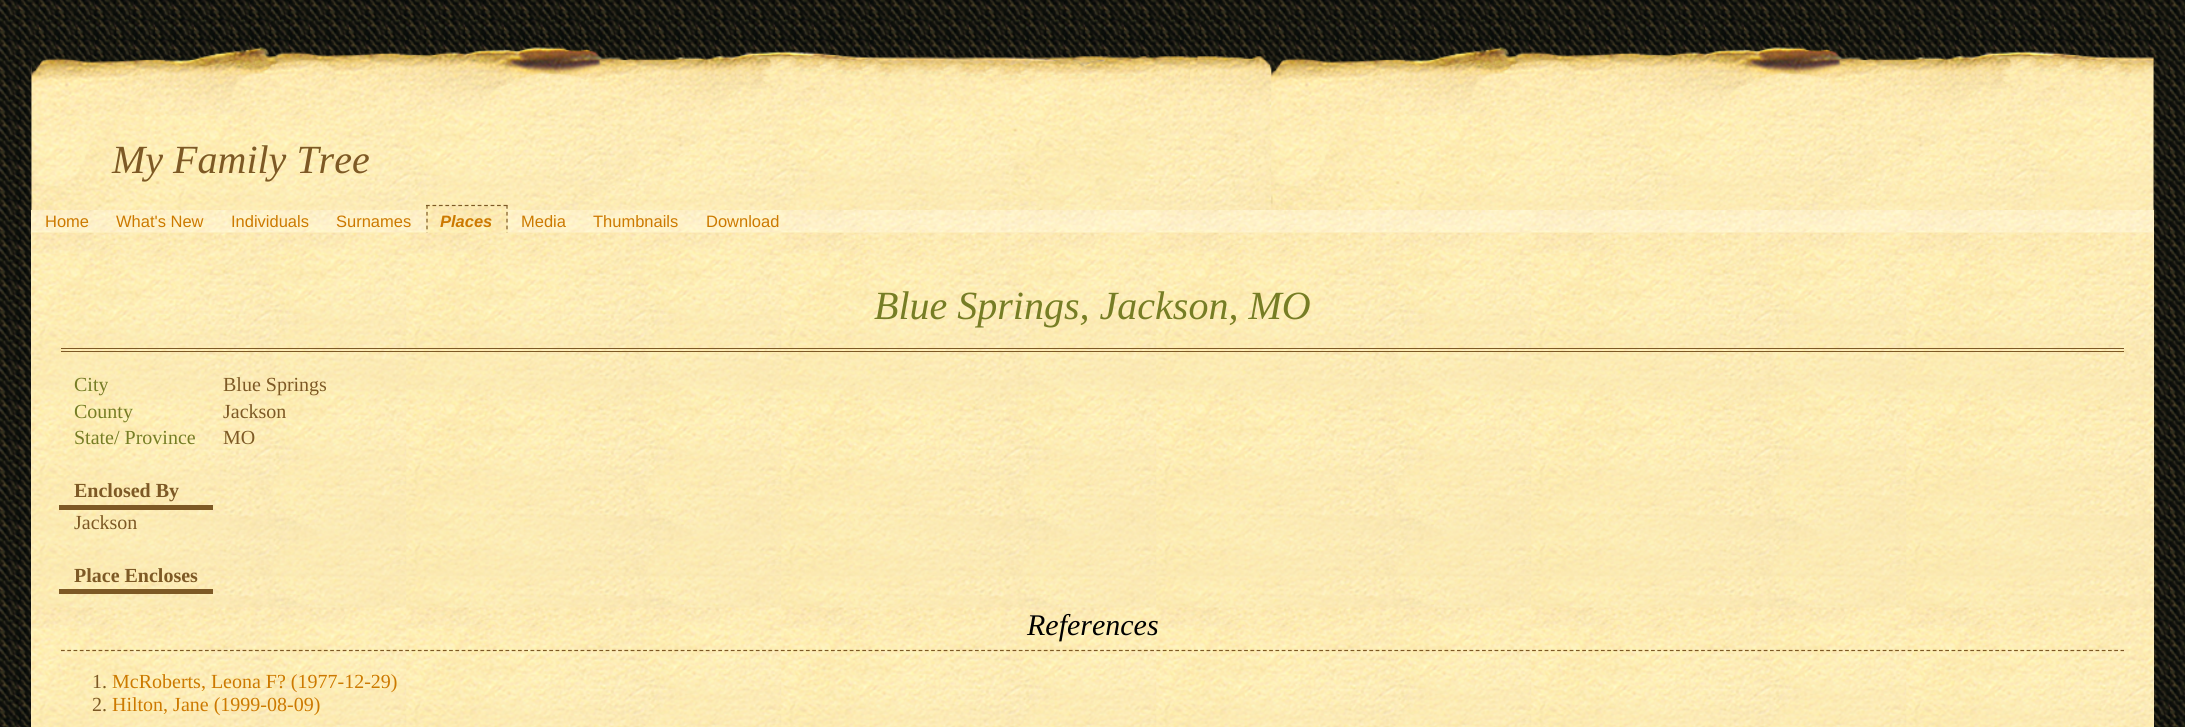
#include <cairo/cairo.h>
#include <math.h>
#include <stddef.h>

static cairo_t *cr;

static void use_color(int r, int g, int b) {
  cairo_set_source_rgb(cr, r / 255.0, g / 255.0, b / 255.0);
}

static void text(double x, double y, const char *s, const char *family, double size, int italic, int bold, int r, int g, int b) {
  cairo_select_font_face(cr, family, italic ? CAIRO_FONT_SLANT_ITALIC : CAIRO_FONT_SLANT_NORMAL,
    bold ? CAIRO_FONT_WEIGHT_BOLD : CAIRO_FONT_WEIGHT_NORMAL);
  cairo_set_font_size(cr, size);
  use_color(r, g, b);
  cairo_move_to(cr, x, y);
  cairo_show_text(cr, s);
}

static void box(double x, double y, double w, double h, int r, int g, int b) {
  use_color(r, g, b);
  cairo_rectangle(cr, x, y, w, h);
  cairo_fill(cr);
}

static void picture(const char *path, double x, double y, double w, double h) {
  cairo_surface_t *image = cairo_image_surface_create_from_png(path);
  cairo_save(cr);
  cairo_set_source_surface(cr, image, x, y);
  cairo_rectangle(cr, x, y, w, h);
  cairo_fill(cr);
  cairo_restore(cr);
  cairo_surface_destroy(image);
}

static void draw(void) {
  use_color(255, 255, 255);
  cairo_paint(cr);
  picture("img_01.png", 0, 0, 2185, 727);
  picture("img_02.png", 31, 47, 2123, 163);
  box(31, 210, 2123, 23, 255, 242, 198);
  picture("img_03.png", 32, 210, 2121, 23);
  picture("img_04.png", 426, 205, 82, 28);
  cairo_new_path(cr);
  cairo_move_to(cr, 426, 205.5);
  cairo_line_to(cr, 507.5, 205.5);
  use_color(125, 89, 37);
  cairo_set_line_width(cr, 1.2);
  cairo_set_dash(cr, (double[]){3.75, 2.71}, 2, 0);
  cairo_stroke(cr);
  cairo_new_path(cr);
  cairo_move_to(cr, 507, 205);
  cairo_line_to(cr, 507, 236);
  cairo_set_dash(cr, (double[]){3.75, 3.12}, 2, 0);
  cairo_stroke(cr);
  cairo_new_path(cr);
  cairo_move_to(cr, 427, 205);
  cairo_line_to(cr, 427, 236);
  cairo_stroke(cr);
  box(31, 233, 2123, 494, 255, 242, 198);
  picture("img_05.png", 31, 232, 2123, 495);
  box(61, 348, 2063, 1, 125, 89, 37);
  box(61, 351, 2063, 1, 125, 89, 37);
  box(59, 505, 154, 5, 125, 89, 37);
  box(59, 589, 154, 5, 125, 89, 37);
  cairo_new_path(cr);
  cairo_move_to(cr, 61, 650.5);
  cairo_line_to(cr, 2124, 650.5);
  cairo_set_dash(cr, (double[]){3.75, 2.51}, 2, 0);
  cairo_stroke(cr);
  text(112, 173, "My Family Tree", "Liberation Serif", 40, 1, 0, 125, 89, 37);
  text(45, 227, "Home", "Liberation Sans", 16.5, 0, 0, 204, 121, 0);
  text(116, 227, "What's New", "Liberation Sans", 16.5, 0, 0, 204, 121, 0);
  text(231, 227, "Individuals", "Liberation Sans", 16.5, 0, 0, 204, 121, 0);
  text(336, 227, "Surnames", "Liberation Sans", 16.5, 0, 0, 204, 121, 0);
  text(440, 227, "Places", "Liberation Sans", 16.5, 1, 1, 204, 121, 0);
  text(521, 227, "Media", "Liberation Sans", 16.5, 0, 0, 204, 121, 0);
  text(593, 227, "Thumbnails", "Liberation Sans", 16.5, 0, 0, 204, 121, 0);
  text(706, 227, "Download", "Liberation Sans", 16.5, 0, 0, 204, 121, 0);
  text(874, 319, "Blue Springs, Jackson, MO", "Liberation Serif", 40, 1, 0, 118, 125, 37);
  text(74, 391, "City", "Liberation Serif", 20, 0, 0, 118, 125, 37);
  text(223, 391, "Blue Springs", "Liberation Serif", 20, 0, 0, 125, 89, 37);
  text(74, 418, "County", "Liberation Serif", 20, 0, 0, 118, 125, 37);
  text(223, 418, "Jackson", "Liberation Serif", 20, 0, 0, 125, 89, 37);
  text(74, 444, "State/ Province", "Liberation Serif", 20, 0, 0, 118, 125, 37);
  text(223, 444, "MO", "Liberation Serif", 20, 0, 0, 125, 89, 37);
  text(74, 497, "Enclosed By", "Liberation Serif", 20, 0, 1, 125, 89, 37);
  text(74, 529, "Jackson", "Liberation Serif", 20, 0, 0, 125, 89, 37);
  text(74, 582, "Place Encloses", "Liberation Serif", 20, 0, 1, 125, 89, 37);
  text(1027, 635, "References", "Liberation Serif", 30, 1, 0, 0, 0, 0);
  text(92, 688, "1.", "Liberation Serif", 20, 0, 0, 125, 89, 37);
  text(112, 688, "McRoberts, Leona F? (1977-12-29)", "Liberation Serif", 20, 0, 0, 204, 121, 0);
  text(92, 711, "2.", "Liberation Serif", 20, 0, 0, 125, 89, 37);
  text(112, 711, "Hilton, Jane (1999-08-09)", "Liberation Serif", 20, 0, 0, 204, 121, 0);
}

int main(void) {
  cairo_surface_t *surface = cairo_image_surface_create(CAIRO_FORMAT_RGB24, 2185, 727);
  cr = cairo_create(surface);
  cairo_font_options_t *options = cairo_font_options_create();
  cairo_font_options_set_hint_metrics(options, CAIRO_HINT_METRICS_OFF);
  cairo_font_options_set_hint_style(options, CAIRO_HINT_STYLE_NONE);
  cairo_set_font_options(cr, options);
  cairo_set_miter_limit(cr, 4);
  draw();
  cairo_surface_write_to_png(surface, "out.png");
  cairo_font_options_destroy(options);
  cairo_destroy(cr);
  cairo_surface_destroy(surface);
  return 0;
}
